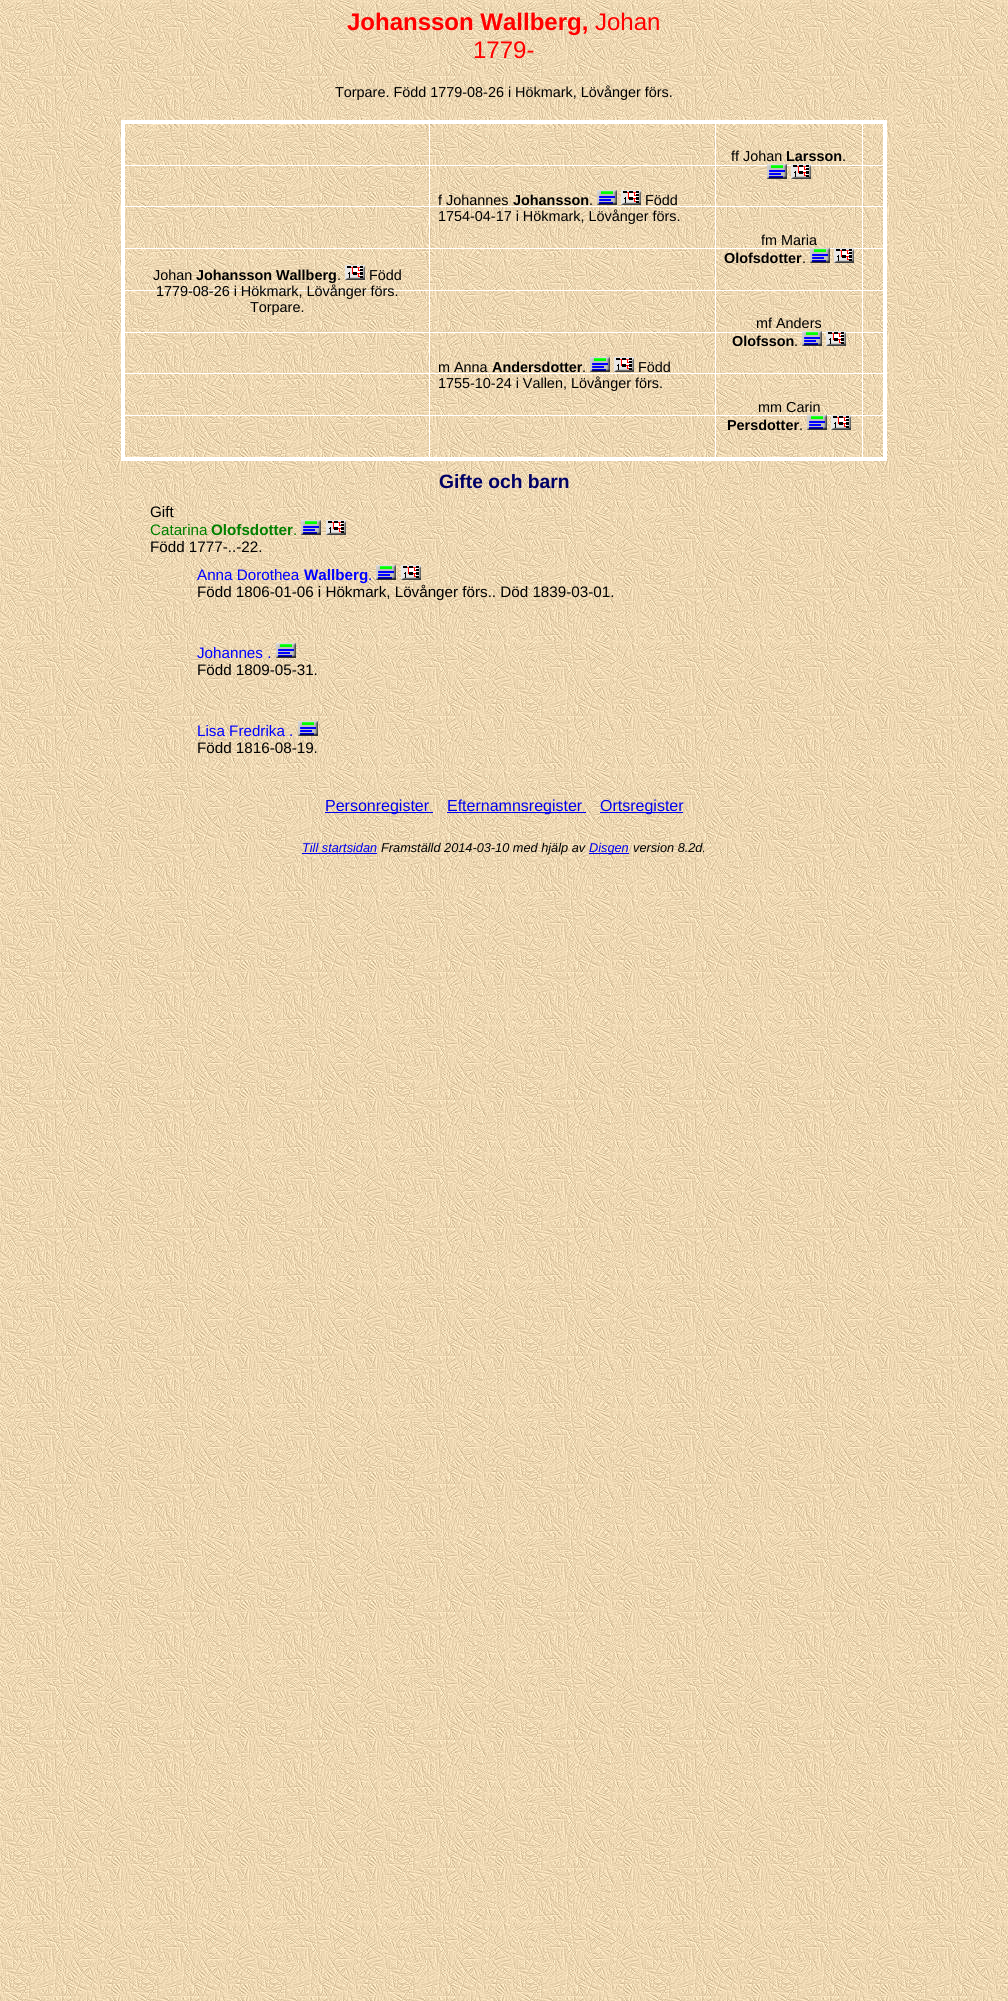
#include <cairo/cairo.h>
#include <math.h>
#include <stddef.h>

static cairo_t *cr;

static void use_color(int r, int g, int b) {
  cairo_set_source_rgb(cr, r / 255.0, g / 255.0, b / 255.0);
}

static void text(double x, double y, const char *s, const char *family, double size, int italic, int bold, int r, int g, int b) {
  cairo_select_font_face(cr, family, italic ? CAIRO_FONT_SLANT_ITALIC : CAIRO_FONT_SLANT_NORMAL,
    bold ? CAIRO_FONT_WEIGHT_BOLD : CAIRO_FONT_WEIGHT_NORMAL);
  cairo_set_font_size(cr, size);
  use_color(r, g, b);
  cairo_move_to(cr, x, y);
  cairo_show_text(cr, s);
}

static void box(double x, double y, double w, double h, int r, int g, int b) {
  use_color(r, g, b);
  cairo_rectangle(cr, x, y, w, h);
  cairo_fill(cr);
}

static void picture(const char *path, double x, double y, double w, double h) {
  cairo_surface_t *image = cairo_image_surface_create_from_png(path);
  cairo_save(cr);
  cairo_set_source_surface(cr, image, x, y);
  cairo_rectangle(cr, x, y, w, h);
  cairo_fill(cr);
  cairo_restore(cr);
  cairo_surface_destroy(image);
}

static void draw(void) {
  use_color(255, 255, 255);
  cairo_paint(cr);
  picture("img_01.png", 0, 0, 1008, 2001);
  box(122, 415, 764, 1, 255, 255, 255);
  box(122, 165, 764, 1, 255, 255, 255);
  box(122, 206, 764, 1, 255, 255, 255);
  box(122, 248, 764, 1, 255, 255, 255);
  box(122, 290, 764, 1, 255, 255, 255);
  box(122, 332, 764, 1, 255, 255, 255);
  box(122, 373, 764, 1, 255, 255, 255);
  box(862, 122, 1, 337, 255, 255, 255);
  box(429, 122, 1, 337, 255, 255, 255);
  box(715, 122, 1, 337, 255, 255, 255);
  box(121, 120, 766, 4, 255, 255, 255);
  box(883, 120, 4, 341, 255, 255, 255);
  box(121, 457, 766, 4, 255, 255, 255);
  box(121, 120, 4, 341, 255, 255, 255);
  picture("img_02.png", 767, 164, 20, 15);
  picture("img_03.png", 791, 164, 20, 15);
  picture("img_02.png", 597, 190, 20, 15);
  picture("img_03.png", 621, 190, 20, 15);
  picture("img_03.png", 345, 265, 20, 15);
  picture("img_02.png", 810, 248, 20, 15);
  picture("img_03.png", 834, 248, 20, 15);
  picture("img_02.png", 802, 331, 20, 15);
  picture("img_03.png", 826, 331, 20, 15);
  picture("img_02.png", 590, 357, 20, 15);
  picture("img_03.png", 614, 357, 20, 15);
  picture("img_02.png", 807, 415, 20, 15);
  picture("img_03.png", 831, 415, 20, 15);
  picture("img_02.png", 301, 520, 20, 15);
  picture("img_03.png", 326, 520, 20, 15);
  picture("img_02.png", 376, 565, 20, 15);
  picture("img_03.png", 401, 565, 20, 15);
  picture("img_02.png", 276, 643, 20, 15);
  picture("img_02.png", 298, 721, 20, 15);
  box(325, 812, 108, 1, 0, 0, 238);
  box(447, 812, 139, 1, 0, 0, 238);
  box(600, 812, 83, 1, 0, 0, 238);
  box(302, 853, 75, 1, 0, 0, 238);
  box(589, 853, 40, 1, 0, 0, 238);
  text(347, 30, "Johansson Wallberg,", "Liberation Sans", 24, 0, 1, 255, 0, 0);
  text(595, 30, "Johan", "Liberation Sans", 24, 0, 0, 255, 0, 0);
  text(473, 58, "1779-", "Liberation Sans", 24, 0, 0, 255, 0, 0);
  text(335, 97, "Torpare. Född 1779-08-26 i Hökmark, Lövånger förs.", "Liberation Sans", 14.4, 0, 0, 0, 0, 0);
  text(731, 161, "ff Johan", "Liberation Sans", 14.4, 0, 0, 0, 0, 0);
  text(786, 161, "Larsson", "Liberation Sans", 14.4, 0, 1, 0, 0, 0);
  text(842, 161, ".", "Liberation Sans", 14.4, 0, 0, 0, 0, 0);
  text(438, 205, "f Johannes", "Liberation Sans", 14.4, 0, 0, 0, 0, 0);
  text(513, 205, "Johansson", "Liberation Sans", 14.4, 0, 1, 0, 0, 0);
  text(589, 205, ".", "Liberation Sans", 14.4, 0, 0, 0, 0, 0);
  text(645, 205, "Född", "Liberation Sans", 14.4, 0, 0, 0, 0, 0);
  text(438, 221, "1754-04-17 i Hökmark, Lövånger förs.", "Liberation Sans", 14.4, 0, 0, 0, 0, 0);
  text(153, 280, "Johan", "Liberation Sans", 14.4, 0, 0, 0, 0, 0);
  text(196, 280, "Johansson Wallberg", "Liberation Sans", 14.4, 0, 1, 0, 0, 0);
  text(337, 280, ".", "Liberation Sans", 14.4, 0, 0, 0, 0, 0);
  text(369, 280, "Född", "Liberation Sans", 14.4, 0, 0, 0, 0, 0);
  text(156, 296, "1779-08-26 i Hökmark, Lövånger förs.", "Liberation Sans", 14.4, 0, 0, 0, 0, 0);
  text(250, 312, "Torpare.", "Liberation Sans", 14.4, 0, 0, 0, 0, 0);
  text(761, 245, "fm Maria", "Liberation Sans", 14.4, 0, 0, 0, 0, 0);
  text(724, 263, "Olofsdotter", "Liberation Sans", 14.4, 0, 1, 0, 0, 0);
  text(802, 263, ".", "Liberation Sans", 14.4, 0, 0, 0, 0, 0);
  text(756, 328, "mf Anders", "Liberation Sans", 14.4, 0, 0, 0, 0, 0);
  text(732, 346, "Olofsson", "Liberation Sans", 14.4, 0, 1, 0, 0, 0);
  text(794, 346, ".", "Liberation Sans", 14.4, 0, 0, 0, 0, 0);
  text(438, 372, "m Anna", "Liberation Sans", 14.4, 0, 0, 0, 0, 0);
  text(492, 372, "Andersdotter", "Liberation Sans", 14.4, 0, 1, 0, 0, 0);
  text(582, 372, ".", "Liberation Sans", 14.4, 0, 0, 0, 0, 0);
  text(638, 372, "Född", "Liberation Sans", 14.4, 0, 0, 0, 0, 0);
  text(438, 388, "1755-10-24 i Vallen, Lövånger förs.", "Liberation Sans", 14.4, 0, 0, 0, 0, 0);
  text(758, 412, "mm Carin", "Liberation Sans", 14.4, 0, 0, 0, 0, 0);
  text(727, 430, "Persdotter", "Liberation Sans", 14.4, 0, 1, 0, 0, 0);
  text(799, 430, ".", "Liberation Sans", 14.4, 0, 0, 0, 0, 0);
  text(439, 488, "Gifte och barn", "Liberation Sans", 19.25, 0, 1, 0, 0, 102);
  text(150, 517, "Gift", "Liberation Sans", 15.2, 0, 0, 0, 0, 0);
  text(150, 535, "Catarina", "Liberation Sans", 15.2, 0, 0, 0, 128, 0);
  text(211, 535, "Olofsdotter", "Liberation Sans", 15.2, 0, 1, 0, 128, 0);
  text(293, 535, ".", "Liberation Sans", 15.2, 0, 0, 0, 128, 0);
  text(150, 552, "Född 1777-..-22.", "Liberation Sans", 15.2, 0, 0, 0, 0, 0);
  text(197, 580, "Anna Dorothea", "Liberation Sans", 15.2, 0, 0, 0, 0, 255);
  text(304, 580, "Wallberg", "Liberation Sans", 15.2, 0, 1, 0, 0, 255);
  text(368, 580, ".", "Liberation Sans", 15.2, 0, 0, 0, 0, 255);
  text(197, 597, "Född 1806-01-06 i Hökmark, Lövånger förs.. Död 1839-03-01.", "Liberation Sans", 15.2, 0, 0, 0, 0, 0);
  text(197, 658, "Johannes .", "Liberation Sans", 15.2, 0, 0, 0, 0, 255);
  text(197, 675, "Född 1809-05-31.", "Liberation Sans", 15.2, 0, 0, 0, 0, 0);
  text(197, 736, "Lisa Fredrika .", "Liberation Sans", 15.2, 0, 0, 0, 0, 255);
  text(197, 753, "Född 1816-08-19.", "Liberation Sans", 15.2, 0, 0, 0, 0, 0);
  text(325, 811, "Personregister", "Liberation Sans", 16, 0, 0, 0, 0, 238);
  text(447, 811, "Efternamnsregister", "Liberation Sans", 16, 0, 0, 0, 0, 238);
  text(600, 811, "Ortsregister", "Liberation Sans", 16, 0, 0, 0, 0, 238);
  text(302, 852, "Till startsidan", "Liberation Sans", 12.75, 1, 0, 0, 0, 238);
  text(381, 852, "Framställd 2014-03-10 med hjälp av", "Liberation Sans", 12.75, 1, 0, 0, 0, 0);
  text(589, 852, "Disgen", "Liberation Sans", 12.75, 1, 0, 0, 0, 238);
  text(633, 852, "version 8.2d.", "Liberation Sans", 12.75, 1, 0, 0, 0, 0);
}

int main(void) {
  cairo_surface_t *surface = cairo_image_surface_create(CAIRO_FORMAT_RGB24, 1008, 2001);
  cr = cairo_create(surface);
  cairo_font_options_t *options = cairo_font_options_create();
  cairo_font_options_set_hint_metrics(options, CAIRO_HINT_METRICS_OFF);
  cairo_font_options_set_hint_style(options, CAIRO_HINT_STYLE_NONE);
  cairo_set_font_options(cr, options);
  cairo_set_miter_limit(cr, 4);
  draw();
  cairo_surface_write_to_png(surface, "out.png");
  cairo_font_options_destroy(options);
  cairo_destroy(cr);
  cairo_surface_destroy(surface);
  return 0;
}
